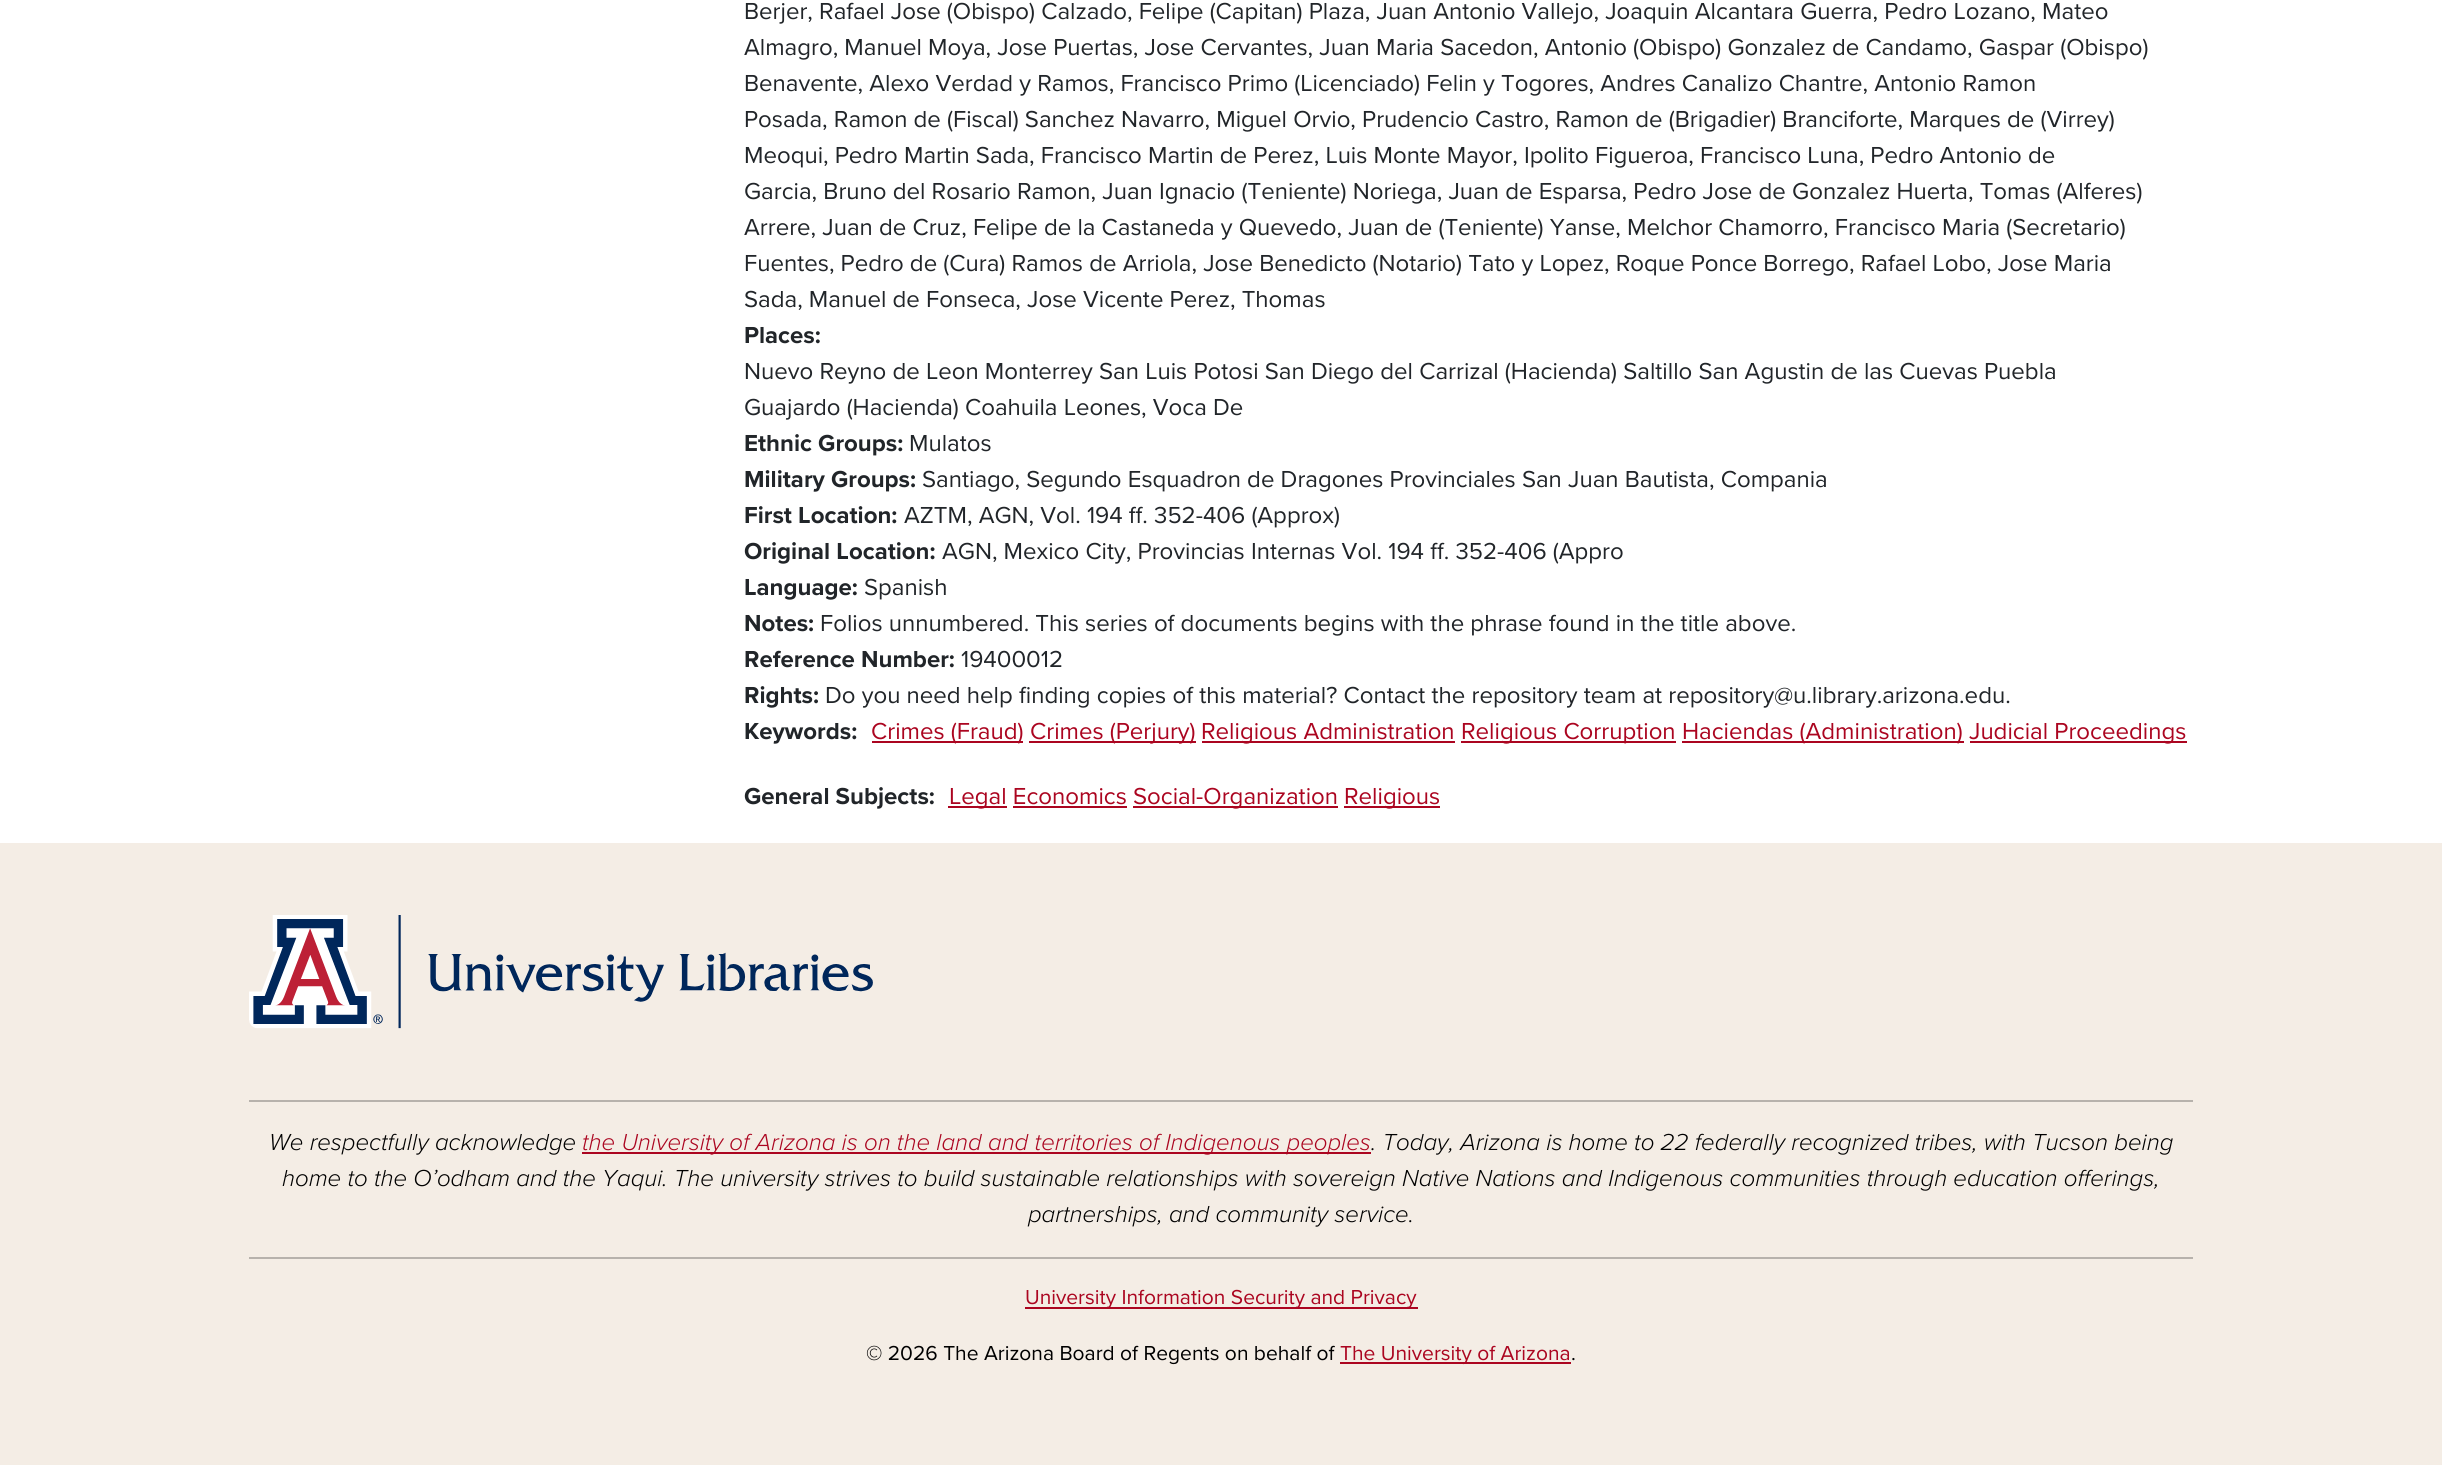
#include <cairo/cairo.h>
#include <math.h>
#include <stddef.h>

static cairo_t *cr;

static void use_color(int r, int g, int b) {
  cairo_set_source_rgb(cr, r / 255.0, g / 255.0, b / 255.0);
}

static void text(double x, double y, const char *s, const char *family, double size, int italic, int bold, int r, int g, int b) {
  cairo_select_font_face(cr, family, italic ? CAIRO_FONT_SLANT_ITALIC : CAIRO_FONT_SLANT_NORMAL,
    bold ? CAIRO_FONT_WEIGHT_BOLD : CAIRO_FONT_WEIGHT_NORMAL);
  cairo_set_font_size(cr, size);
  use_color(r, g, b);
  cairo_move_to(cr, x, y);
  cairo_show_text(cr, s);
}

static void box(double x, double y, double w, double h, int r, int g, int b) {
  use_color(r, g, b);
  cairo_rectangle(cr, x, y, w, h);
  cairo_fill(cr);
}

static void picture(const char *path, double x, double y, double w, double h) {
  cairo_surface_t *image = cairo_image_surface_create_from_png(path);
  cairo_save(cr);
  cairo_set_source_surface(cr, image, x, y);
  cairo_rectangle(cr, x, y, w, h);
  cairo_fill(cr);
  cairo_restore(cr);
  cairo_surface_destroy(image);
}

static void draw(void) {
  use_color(255, 255, 255);
  cairo_paint(cr);
  box(872, 741, 151, 2, 171, 5, 32);
  box(1029, 741, 167, 2, 171, 5, 32);
  box(1202, 741, 253, 2, 171, 5, 32);
  box(1461, 741, 215, 2, 171, 5, 32);
  box(1682, 741, 282, 2, 171, 5, 32);
  box(1970, 741, 217, 2, 171, 5, 32);
  box(948, 806, 59, 2, 171, 5, 32);
  box(1133, 806, 205, 2, 171, 5, 32);
  box(1344, 806, 96, 2, 171, 5, 32);
  box(1013, 806, 114, 2, 171, 5, 32);
  box(0, 843, 2442, 622, 244, 237, 229);
  picture("img_01.png", 249, 915, 624, 114);
  box(249, 1100, 1944, 2, 183, 178, 172);
  box(582, 1152, 789, 2, 171, 5, 32);
  box(249, 1257, 1944, 2, 183, 178, 172);
  box(1025, 1307, 393, 2, 171, 5, 32);
  box(1340, 1362, 231, 2, 171, 5, 32);
  text(744, 19, "Berjer, Rafael Jose (Obispo) Calzado, Felipe (Capitan) Plaza, Juan Antonio Vallejo, Joaquin Alcantara Guerra, Pedro Lozano, Mateo", "Proxima Nova", 24, 0, 0, 33, 37, 41);
  text(744, 55, "Almagro, Manuel Moya, Jose Puertas, Jose Cervantes, Juan Maria Sacedon, Antonio (Obispo) Gonzalez de Candamo, Gaspar (Obispo)", "Proxima Nova", 24, 0, 0, 33, 37, 41);
  text(744, 91, "Benavente, Alexo Verdad y Ramos, Francisco Primo (Licenciado) Felin y Togores, Andres Canalizo Chantre, Antonio Ramon", "Proxima Nova", 24, 0, 0, 33, 37, 41);
  text(744, 127, "Posada, Ramon de (Fiscal) Sanchez Navarro, Miguel Orvio, Prudencio Castro, Ramon de (Brigadier) Branciforte, Marques de (Virrey)", "Proxima Nova", 24, 0, 0, 33, 37, 41);
  text(744, 163, "Meoqui, Pedro Martin Sada, Francisco Martin de Perez, Luis Monte Mayor, Ipolito Figueroa, Francisco Luna, Pedro Antonio de", "Proxima Nova", 24, 0, 0, 33, 37, 41);
  text(744, 199, "Garcia, Bruno del Rosario Ramon, Juan Ignacio (Teniente) Noriega, Juan de Esparsa, Pedro Jose de Gonzalez Huerta, Tomas (Alferes)", "Proxima Nova", 24, 0, 0, 33, 37, 41);
  text(744, 235, "Arrere, Juan de Cruz, Felipe de la Castaneda y Quevedo, Juan de (Teniente) Yanse, Melchor Chamorro, Francisco Maria (Secretario)", "Proxima Nova", 24, 0, 0, 33, 37, 41);
  text(744, 271, "Fuentes, Pedro de (Cura) Ramos de Arriola, Jose Benedicto (Notario) Tato y Lopez, Roque Ponce Borrego, Rafael Lobo, Jose Maria", "Proxima Nova", 24, 0, 0, 33, 37, 41);
  text(744, 307, "Sada, Manuel de Fonseca, Jose Vicente Perez, Thomas", "Proxima Nova", 24, 0, 0, 33, 37, 41);
  text(744, 343, "Places:", "Proxima Nova", 24, 0, 1, 33, 37, 41);
  text(744, 379, "Nuevo Reyno de Leon Monterrey San Luis Potosi San Diego del Carrizal (Hacienda) Saltillo San Agustin de las Cuevas Puebla", "Proxima Nova", 24, 0, 0, 33, 37, 41);
  text(744, 415, "Guajardo (Hacienda) Coahuila Leones, Voca De", "Proxima Nova", 24, 0, 0, 33, 37, 41);
  text(744, 451, "Ethnic Groups:", "Proxima Nova", 24, 0, 1, 33, 37, 41);
  text(909, 451, "Mulatos", "Proxima Nova", 24, 0, 0, 33, 37, 41);
  text(744, 487, "Military Groups:", "Proxima Nova", 24, 0, 1, 33, 37, 41);
  text(922, 487, "Santiago, Segundo Esquadron de Dragones Provinciales San Juan Bautista, Compania", "Proxima Nova", 24, 0, 0, 33, 37, 41);
  text(744, 523, "First Location:", "Proxima Nova", 24, 0, 1, 33, 37, 41);
  text(904, 523, "AZTM, AGN, Vol. 194 ff. 352-406 (Approx)", "Proxima Nova", 24, 0, 0, 33, 37, 41);
  text(744, 559, "Original Location:", "Proxima Nova", 24, 0, 1, 33, 37, 41);
  text(942, 559, "AGN, Mexico City, Provincias Internas Vol. 194 ff. 352-406 (Appro", "Proxima Nova", 24, 0, 0, 33, 37, 41);
  text(744, 595, "Language:", "Proxima Nova", 24, 0, 1, 33, 37, 41);
  text(864, 595, "Spanish", "Proxima Nova", 24, 0, 0, 33, 37, 41);
  text(744, 631, "Notes:", "Proxima Nova", 24, 0, 1, 33, 37, 41);
  text(820, 631, "Folios unnumbered. This series of documents begins with the phrase found in the title above.", "Proxima Nova", 24, 0, 0, 33, 37, 41);
  text(744, 667, "Reference Number:", "Proxima Nova", 24, 0, 1, 33, 37, 41);
  text(961, 667, "19400012", "Proxima Nova", 24, 0, 0, 33, 37, 41);
  text(744, 703, "Rights:", "Proxima Nova", 24, 0, 1, 33, 37, 41);
  text(825, 703, "Do you need help finding copies of this material? Contact the repository team at repository@u.library.arizona.edu.", "Proxima Nova", 24, 0, 0, 33, 37, 41);
  text(744, 739, "Keywords:", "Proxima Nova", 24, 0, 1, 33, 37, 41);
  text(871, 739, "Crimes (Fraud)", "Proxima Nova", 24, 0, 0, 171, 5, 32);
  text(1030, 739, "Crimes (Perjury)", "Proxima Nova", 24, 0, 0, 171, 5, 32);
  text(1201, 739, "Religious Administration", "Proxima Nova", 24, 0, 0, 171, 5, 32);
  text(1461, 739, "Religious Corruption", "Proxima Nova", 24, 0, 0, 171, 5, 32);
  text(1682, 739, "Haciendas (Administration)", "Proxima Nova", 24, 0, 0, 171, 5, 32);
  text(1969, 739, "Judicial Proceedings", "Proxima Nova", 24, 0, 0, 171, 5, 32);
  text(744, 804, "General Subjects:", "Proxima Nova", 24, 0, 1, 33, 37, 41);
  text(949, 804, "Legal Economics", "Proxima Nova", 24, 0, 0, 171, 5, 32);
  text(1133, 804, "Social-Organization", "Proxima Nova", 24, 0, 0, 171, 5, 32);
  text(1344, 804, "Religious", "Proxima Nova", 24, 0, 0, 171, 5, 32);
  text(269, 1150, "We respectfully acknowledge", "Proxima Nova Light", 24, 1, 0, 0, 0, 0);
  text(582, 1150, "the University of Arizona is on the land and territories of Indigenous peoples", "Proxima Nova Light", 24, 1, 0, 171, 5, 32);
  text(1371, 1150, ". Today, Arizona is home to 22 federally recognized tribes, with Tucson being", "Proxima Nova Light", 24, 1, 0, 0, 0, 0);
  text(282, 1186, "home to the O’odham and the Yaqui. The university strives to build sustainable relationships with sovereign Native Nations and Indigenous communities through education offerings,", "Proxima Nova Light", 24, 1, 0, 0, 0, 0);
  text(1028, 1222, "partnerships, and community service.", "Proxima Nova Light", 24, 1, 0, 0, 0, 0);
  text(1025, 1304, "University Information Security and Privacy", "Proxima Nova", 21, 0, 0, 171, 5, 32);
  text(866, 1360, "© 2026 The Arizona Board of Regents on behalf of", "Proxima Nova", 21, 0, 0, 0, 0, 0);
  text(1340, 1360, "The University of Arizona", "Proxima Nova", 21, 0, 0, 171, 5, 32);
  text(1571, 1360, ".", "Proxima Nova", 21, 0, 0, 0, 0, 0);
}

int main(void) {
  cairo_surface_t *surface = cairo_image_surface_create(CAIRO_FORMAT_RGB24, 2442, 1465);
  cr = cairo_create(surface);
  cairo_font_options_t *options = cairo_font_options_create();
  cairo_font_options_set_hint_metrics(options, CAIRO_HINT_METRICS_OFF);
  cairo_font_options_set_hint_style(options, CAIRO_HINT_STYLE_NONE);
  cairo_set_font_options(cr, options);
  cairo_set_miter_limit(cr, 4);
  draw();
  cairo_surface_write_to_png(surface, "out.png");
  cairo_font_options_destroy(options);
  cairo_destroy(cr);
  cairo_surface_destroy(surface);
  return 0;
}
